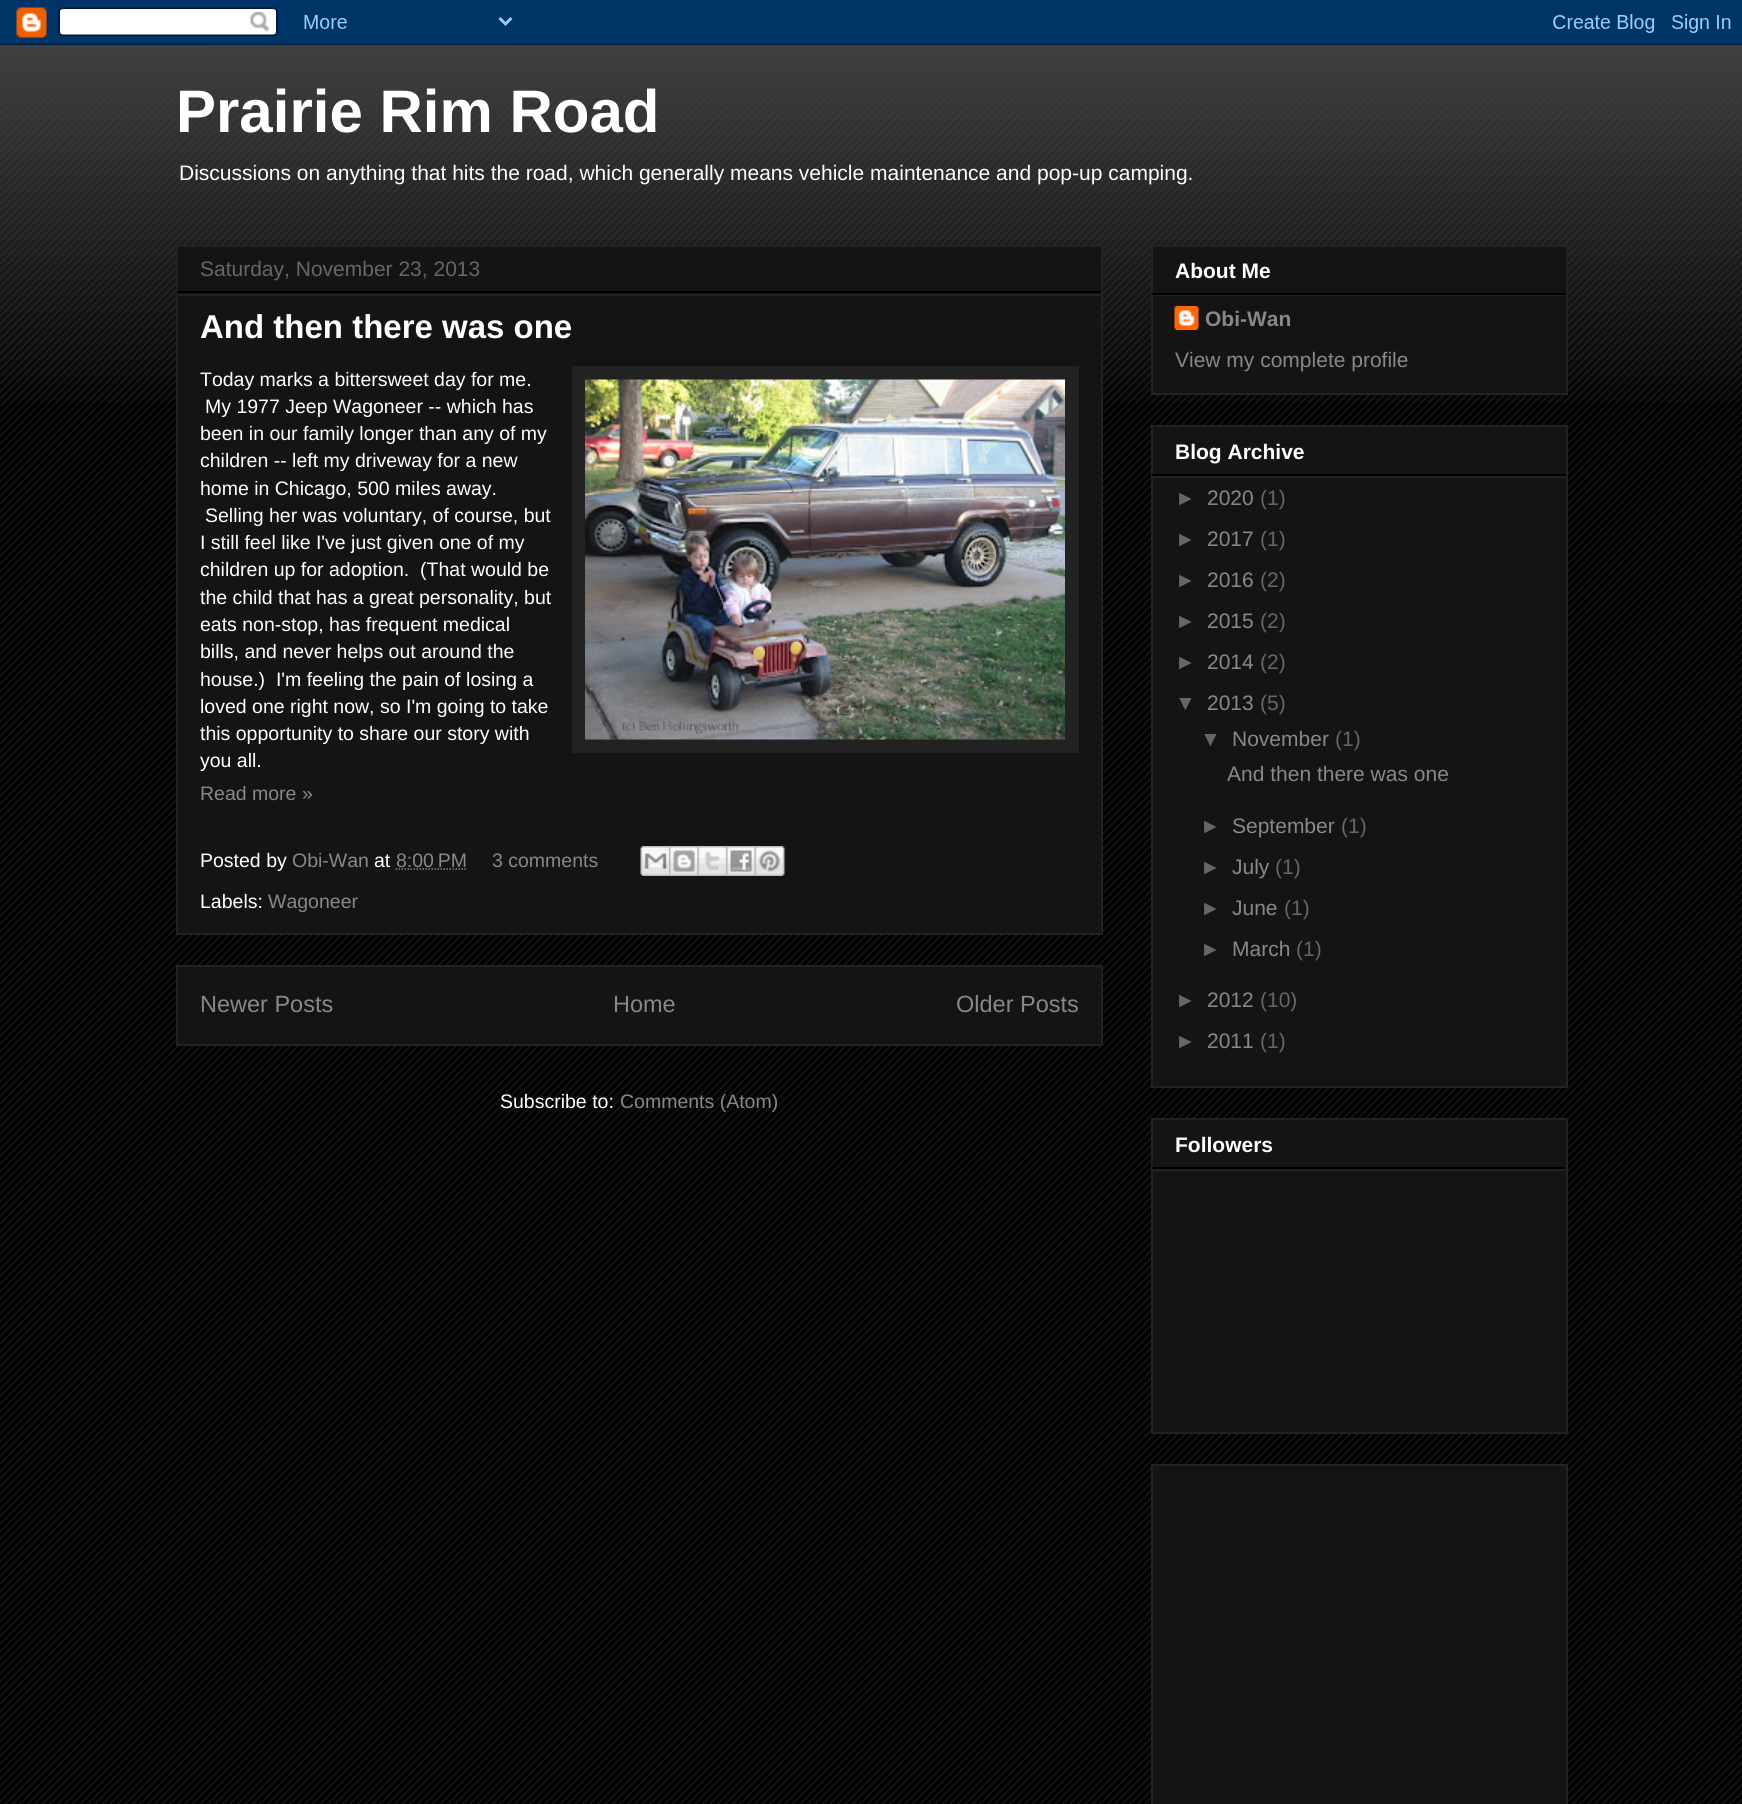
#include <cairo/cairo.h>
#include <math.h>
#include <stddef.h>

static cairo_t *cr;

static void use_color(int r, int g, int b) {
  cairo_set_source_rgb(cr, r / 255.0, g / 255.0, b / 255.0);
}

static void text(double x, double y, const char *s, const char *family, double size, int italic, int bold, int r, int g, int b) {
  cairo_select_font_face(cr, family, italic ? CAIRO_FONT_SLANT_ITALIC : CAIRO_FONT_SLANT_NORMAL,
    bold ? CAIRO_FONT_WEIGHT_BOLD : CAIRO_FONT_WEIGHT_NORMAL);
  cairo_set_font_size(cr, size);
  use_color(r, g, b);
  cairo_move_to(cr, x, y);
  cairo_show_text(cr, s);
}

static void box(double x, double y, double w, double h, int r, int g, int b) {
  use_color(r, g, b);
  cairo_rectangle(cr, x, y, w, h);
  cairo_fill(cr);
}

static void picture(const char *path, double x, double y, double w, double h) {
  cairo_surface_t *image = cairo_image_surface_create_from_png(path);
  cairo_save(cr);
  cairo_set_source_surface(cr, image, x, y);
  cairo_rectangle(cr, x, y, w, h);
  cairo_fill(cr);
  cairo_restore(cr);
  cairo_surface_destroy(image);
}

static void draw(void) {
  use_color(0, 0, 0);
  cairo_paint(cr);
  picture("img_01.png", 0, 43, 1742, 1761);
  picture("img_03.png", 0, 43, 1742, 359);
  picture("img_02.png", 0, 0, 1742, 45);
  use_color(20, 20, 20);
  cairo_rectangle(cr, 177, 246, 925, 688);
  cairo_fill_preserve(cr);
  use_color(34, 34, 34);
  cairo_stroke(cr);
  box(177, 291, 924, 2, 0, 0, 0);
  box(177, 294, 924, 2, 34, 34, 34);
  box(572, 366, 507, 387, 34, 34, 34);
  picture("img_04.png", 585, 379, 480, 361);
  cairo_new_path(cr);
  cairo_move_to(cr, 395.5, 869);
  cairo_line_to(cr, 467, 869);
  use_color(136, 136, 136);
  cairo_set_line_width(cr, 1.5);
  cairo_set_dash(cr, (double[]){1.5, 1.5}, 2, 0);
  cairo_stroke(cr);
  picture("img_05.png", 640, 846, 29, 30);
  picture("img_06.png", 669, 846, 29, 30);
  picture("img_07.png", 697, 846, 29, 30);
  picture("img_08.png", 726, 846, 29, 30);
  picture("img_09.png", 754, 846, 31, 30);
  use_color(20, 20, 20);
  cairo_rectangle(cr, 177, 966, 925, 79);
  cairo_fill_preserve(cr);
  use_color(34, 34, 34);
  cairo_set_line_width(cr, 2);
  cairo_set_dash(cr, NULL, 0, 0);
  cairo_stroke(cr);
  use_color(20, 20, 20);
  cairo_rectangle(cr, 1152, 246, 415, 148);
  cairo_fill_preserve(cr);
  use_color(34, 34, 34);
  cairo_stroke(cr);
  box(1152, 293, 414, 2, 0, 0, 0);
  box(1152, 295, 414, 1, 34, 34, 34);
  picture("img_10.png", 1174, 306, 25, 24);
  use_color(20, 20, 20);
  cairo_rectangle(cr, 1152, 426, 415, 661);
  cairo_fill_preserve(cr);
  use_color(34, 34, 34);
  cairo_stroke(cr);
  box(1152, 474, 414, 2, 0, 0, 0);
  box(1152, 476, 414, 2, 34, 34, 34);
  use_color(20, 20, 20);
  cairo_rectangle(cr, 1152, 1119, 415, 314);
  cairo_fill_preserve(cr);
  use_color(34, 34, 34);
  cairo_stroke(cr);
  box(1152, 1167, 414, 2, 0, 0, 0);
  box(1152, 1169, 414, 2, 34, 34, 34);
  use_color(20, 20, 20);
  cairo_rectangle(cr, 1152, 1465, 415, 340);
  cairo_fill_preserve(cr);
  use_color(34, 34, 34);
  cairo_stroke(cr);
  text(176, 132, "Prairie Rim Road", "Liberation Sans", 60, 0, 1, 255, 255, 255);
  text(179, 180, "Discussions on anything that hits the road, which generally means vehicle maintenance and pop-up camping.", "Liberation Sans", 21, 0, 0, 255, 255, 255);
  text(200, 276, "Saturday, November 23, 2013", "Liberation Sans", 21, 0, 0, 102, 102, 102);
  text(200, 338, "And then there was one", "Liberation Sans", 33, 0, 1, 255, 255, 255);
  text(200, 386, "Today marks a bittersweet day for me.", "Liberation Sans", 19.5, 0, 0, 255, 255, 255);
  text(205, 413, "My 1977 Jeep Wagoneer -- which has", "Liberation Sans", 19.5, 0, 0, 255, 255, 255);
  text(200, 440, "been in our family longer than any of my", "Liberation Sans", 19.5, 0, 0, 255, 255, 255);
  text(200, 467, "children -- left my driveway for a new", "Liberation Sans", 19.5, 0, 0, 255, 255, 255);
  text(200, 495, "home in Chicago, 500 miles away.", "Liberation Sans", 19.5, 0, 0, 255, 255, 255);
  text(205, 522, "Selling her was voluntary, of course, but", "Liberation Sans", 19.5, 0, 0, 255, 255, 255);
  text(200, 549, "I still feel like I've just given one of my", "Liberation Sans", 19.5, 0, 0, 255, 255, 255);
  text(200, 576, "children up for adoption.  (That would be", "Liberation Sans", 19.5, 0, 0, 255, 255, 255);
  text(200, 604, "the child that has a great personality, but", "Liberation Sans", 19.5, 0, 0, 255, 255, 255);
  text(200, 631, "eats non-stop, has frequent medical", "Liberation Sans", 19.5, 0, 0, 255, 255, 255);
  text(200, 658, "bills, and never helps out around the", "Liberation Sans", 19.5, 0, 0, 255, 255, 255);
  text(200, 686, "house.)  I'm feeling the pain of losing a", "Liberation Sans", 19.5, 0, 0, 255, 255, 255);
  text(200, 713, "loved one right now, so I'm going to take", "Liberation Sans", 19.5, 0, 0, 255, 255, 255);
  text(200, 740, "this opportunity to share our story with", "Liberation Sans", 19.5, 0, 0, 255, 255, 255);
  text(200, 767, "you all.", "Liberation Sans", 19.5, 0, 0, 255, 255, 255);
  text(200, 800, "Read more »", "Liberation Sans", 19.5, 0, 0, 136, 136, 136);
  text(200, 867, "Posted by", "Liberation Sans", 19.5, 0, 0, 255, 255, 255);
  text(292, 867, "Obi-Wan", "Liberation Sans", 19.5, 0, 0, 136, 136, 136);
  text(374, 867, "at", "Liberation Sans", 19.5, 0, 0, 255, 255, 255);
  text(396, 867, "8:00 PM", "Liberation Sans", 19.5, 0, 0, 136, 136, 136);
  text(492, 867, "3 comments", "Liberation Sans", 19.5, 0, 0, 136, 136, 136);
  text(200, 908, "Labels:", "Liberation Sans", 19.5, 0, 0, 255, 255, 255);
  text(268, 908, "Wagoneer", "Liberation Sans", 19.5, 0, 0, 136, 136, 136);
  text(200, 1012, "Newer Posts", "Liberation Sans", 23.5, 0, 0, 136, 136, 136);
  text(613, 1012, "Home", "Liberation Sans", 23.5, 0, 0, 136, 136, 136);
  text(956, 1012, "Older Posts", "Liberation Sans", 23.5, 0, 0, 136, 136, 136);
  text(500, 1108, "Subscribe to:", "Liberation Sans", 19.5, 0, 0, 255, 255, 255);
  text(620, 1108, "Comments (Atom)", "Liberation Sans", 19.5, 0, 0, 136, 136, 136);
  text(1175, 278, "About Me", "Liberation Sans", 21, 0, 1, 255, 255, 255);
  text(1205, 326, "Obi-Wan", "Liberation Sans", 21, 0, 1, 136, 136, 136);
  text(1175, 367, "View my complete profile", "Liberation Sans", 21, 0, 0, 136, 136, 136);
  text(1175, 459, "Blog Archive", "Liberation Sans", 21, 0, 1, 255, 255, 255);
  text(1175, 505, "►", "Liberation Sans", 21, 0, 0, 102, 102, 102);
  text(1207, 505, "2020", "Liberation Sans", 21, 0, 0, 136, 136, 136);
  text(1260, 505, "(1)", "Liberation Sans", 21, 0, 0, 102, 102, 102);
  text(1175, 546, "►", "Liberation Sans", 21, 0, 0, 102, 102, 102);
  text(1207, 546, "2017", "Liberation Sans", 21, 0, 0, 136, 136, 136);
  text(1260, 546, "(1)", "Liberation Sans", 21, 0, 0, 102, 102, 102);
  text(1175, 587, "►", "Liberation Sans", 21, 0, 0, 102, 102, 102);
  text(1207, 587, "2016", "Liberation Sans", 21, 0, 0, 136, 136, 136);
  text(1260, 587, "(2)", "Liberation Sans", 21, 0, 0, 102, 102, 102);
  text(1175, 628, "►", "Liberation Sans", 21, 0, 0, 102, 102, 102);
  text(1207, 628, "2015", "Liberation Sans", 21, 0, 0, 136, 136, 136);
  text(1260, 628, "(2)", "Liberation Sans", 21, 0, 0, 102, 102, 102);
  text(1175, 669, "►", "Liberation Sans", 21, 0, 0, 102, 102, 102);
  text(1207, 669, "2014", "Liberation Sans", 21, 0, 0, 136, 136, 136);
  text(1260, 669, "(2)", "Liberation Sans", 21, 0, 0, 102, 102, 102);
  text(1175, 710, "▼", "Liberation Sans", 21, 0, 0, 102, 102, 102);
  text(1207, 710, "2013", "Liberation Sans", 21, 0, 0, 136, 136, 136);
  text(1260, 710, "(5)", "Liberation Sans", 21, 0, 0, 102, 102, 102);
  text(1200, 746, "▼", "Liberation Sans", 21, 0, 0, 102, 102, 102);
  text(1232, 746, "November", "Liberation Sans", 21, 0, 0, 136, 136, 136);
  text(1335, 746, "(1)", "Liberation Sans", 21, 0, 0, 102, 102, 102);
  text(1227, 781, "And then there was one", "Liberation Sans", 21, 0, 0, 136, 136, 136);
  text(1200, 833, "►", "Liberation Sans", 21, 0, 0, 102, 102, 102);
  text(1232, 833, "September", "Liberation Sans", 21, 0, 0, 136, 136, 136);
  text(1341, 833, "(1)", "Liberation Sans", 21, 0, 0, 102, 102, 102);
  text(1200, 874, "►", "Liberation Sans", 21, 0, 0, 102, 102, 102);
  text(1232, 874, "July", "Liberation Sans", 21, 0, 0, 136, 136, 136);
  text(1275, 874, "(1)", "Liberation Sans", 21, 0, 0, 102, 102, 102);
  text(1200, 915, "►", "Liberation Sans", 21, 0, 0, 102, 102, 102);
  text(1232, 915, "June", "Liberation Sans", 21, 0, 0, 136, 136, 136);
  text(1284, 915, "(1)", "Liberation Sans", 21, 0, 0, 102, 102, 102);
  text(1200, 956, "►", "Liberation Sans", 21, 0, 0, 102, 102, 102);
  text(1232, 956, "March", "Liberation Sans", 21, 0, 0, 136, 136, 136);
  text(1296, 956, "(1)", "Liberation Sans", 21, 0, 0, 102, 102, 102);
  text(1175, 1007, "►", "Liberation Sans", 21, 0, 0, 102, 102, 102);
  text(1207, 1007, "2012", "Liberation Sans", 21, 0, 0, 136, 136, 136);
  text(1260, 1007, "(10)", "Liberation Sans", 21, 0, 0, 102, 102, 102);
  text(1175, 1048, "►", "Liberation Sans", 21, 0, 0, 102, 102, 102);
  text(1207, 1048, "2011", "Liberation Sans", 21, 0, 0, 136, 136, 136);
  text(1260, 1048, "(1)", "Liberation Sans", 21, 0, 0, 102, 102, 102);
  text(1175, 1152, "Followers", "Liberation Sans", 21, 0, 1, 255, 255, 255);
}

int main(void) {
  cairo_surface_t *surface = cairo_image_surface_create(CAIRO_FORMAT_RGB24, 1742, 1804);
  cr = cairo_create(surface);
  cairo_font_options_t *options = cairo_font_options_create();
  cairo_font_options_set_hint_metrics(options, CAIRO_HINT_METRICS_OFF);
  cairo_font_options_set_hint_style(options, CAIRO_HINT_STYLE_NONE);
  cairo_set_font_options(cr, options);
  cairo_set_miter_limit(cr, 4);
  draw();
  cairo_surface_write_to_png(surface, "out.png");
  cairo_font_options_destroy(options);
  cairo_destroy(cr);
  cairo_surface_destroy(surface);
  return 0;
}
